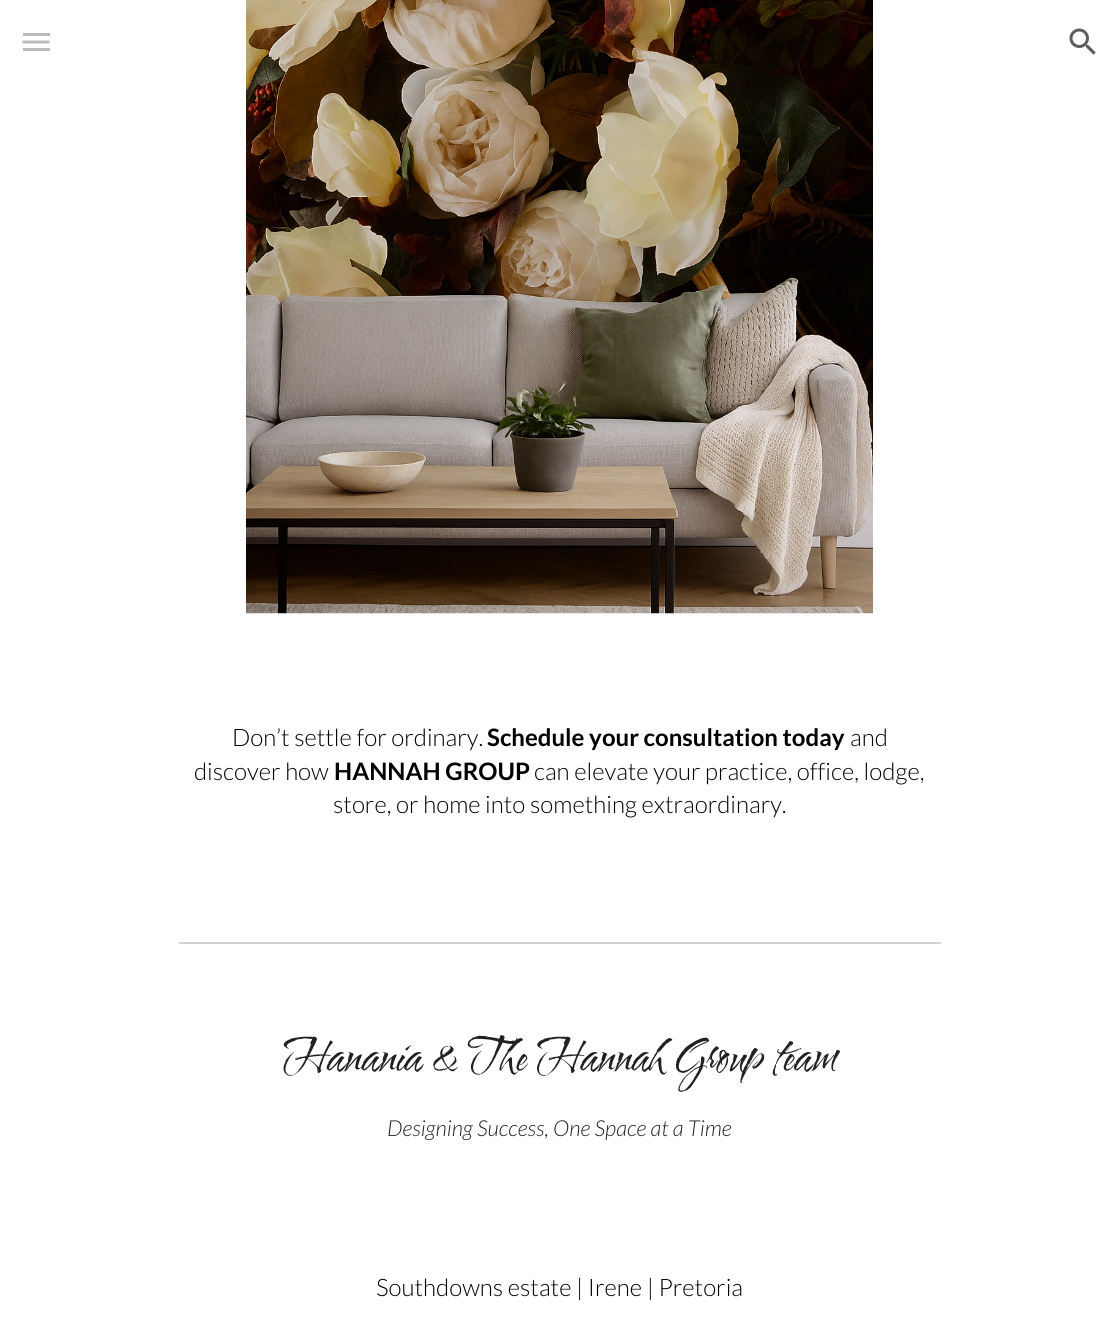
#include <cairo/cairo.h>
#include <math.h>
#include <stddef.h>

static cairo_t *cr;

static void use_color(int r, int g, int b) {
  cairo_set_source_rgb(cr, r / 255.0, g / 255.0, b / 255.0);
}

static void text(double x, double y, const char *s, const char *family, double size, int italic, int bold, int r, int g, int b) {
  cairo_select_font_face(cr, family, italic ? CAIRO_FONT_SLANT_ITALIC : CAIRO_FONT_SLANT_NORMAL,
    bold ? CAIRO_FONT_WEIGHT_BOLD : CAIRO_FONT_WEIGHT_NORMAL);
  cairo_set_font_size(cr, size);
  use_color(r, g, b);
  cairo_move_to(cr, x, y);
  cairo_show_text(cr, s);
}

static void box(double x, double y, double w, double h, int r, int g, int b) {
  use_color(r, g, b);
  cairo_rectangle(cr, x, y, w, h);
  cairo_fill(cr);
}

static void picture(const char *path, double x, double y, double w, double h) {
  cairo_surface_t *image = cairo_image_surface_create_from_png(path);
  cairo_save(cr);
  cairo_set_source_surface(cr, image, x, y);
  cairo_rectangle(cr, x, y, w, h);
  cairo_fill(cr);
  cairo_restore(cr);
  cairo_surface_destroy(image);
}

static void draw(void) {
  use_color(255, 255, 255);
  cairo_paint(cr);
  box(23, 33, 27, 3, 187, 187, 187);
  cairo_new_path(cr);
  cairo_move_to(cr, 22.5, 42);
  cairo_line_to(cr, 49.5, 42);
  cairo_set_line_width(cr, 3);
  cairo_stroke(cr);
  box(23, 48, 27, 3, 187, 187, 187);
  picture("img_01.png", 1069, 28, 27, 27);
  picture("img_02.png", 246, 0, 627, 614);
  box(179, 942, 762, 2, 211, 211, 211);
  text(232, 746, "Don’t settle for ordinary.", "Lato Light", 24, 0, 0, 0, 0, 0);
  text(487, 746, "Schedule your consultation today", "Lato", 24, 0, 1, 0, 0, 0);
  text(850, 746, "and", "Lato Light", 24, 0, 0, 0, 0, 0);
  text(194, 780, "discover how", "Lato Light", 24, 0, 0, 0, 0, 0);
  text(334, 780, "HANNAH GROUP", "Lato", 24, 0, 1, 0, 0, 0);
  text(534, 780, "can elevate your practice, office, lodge,", "Lato Light", 24, 0, 0, 0, 0, 0);
  text(333, 813, "store, or home into something extraordinary.", "Lato Light", 24, 0, 0, 0, 0, 0);
  text(283, 1071, "Hanania & The Hannah Group team", "Water Brush", 44, 0, 0, 33, 33, 33);
  text(387, 1136, "Designing Success, One Space at a Time", "Lato Light", 22, 1, 0, 33, 33, 33);
  text(376, 1296, "Southdowns estate | Irene | Pretoria", "Lato Light", 24, 0, 0, 0, 0, 0);
}

int main(void) {
  cairo_surface_t *surface = cairo_image_surface_create(CAIRO_FORMAT_RGB24, 1118, 1325);
  cr = cairo_create(surface);
  cairo_font_options_t *options = cairo_font_options_create();
  cairo_font_options_set_hint_metrics(options, CAIRO_HINT_METRICS_OFF);
  cairo_font_options_set_hint_style(options, CAIRO_HINT_STYLE_NONE);
  cairo_set_font_options(cr, options);
  cairo_set_miter_limit(cr, 4);
  draw();
  cairo_surface_write_to_png(surface, "out.png");
  cairo_font_options_destroy(options);
  cairo_destroy(cr);
  cairo_surface_destroy(surface);
  return 0;
}
